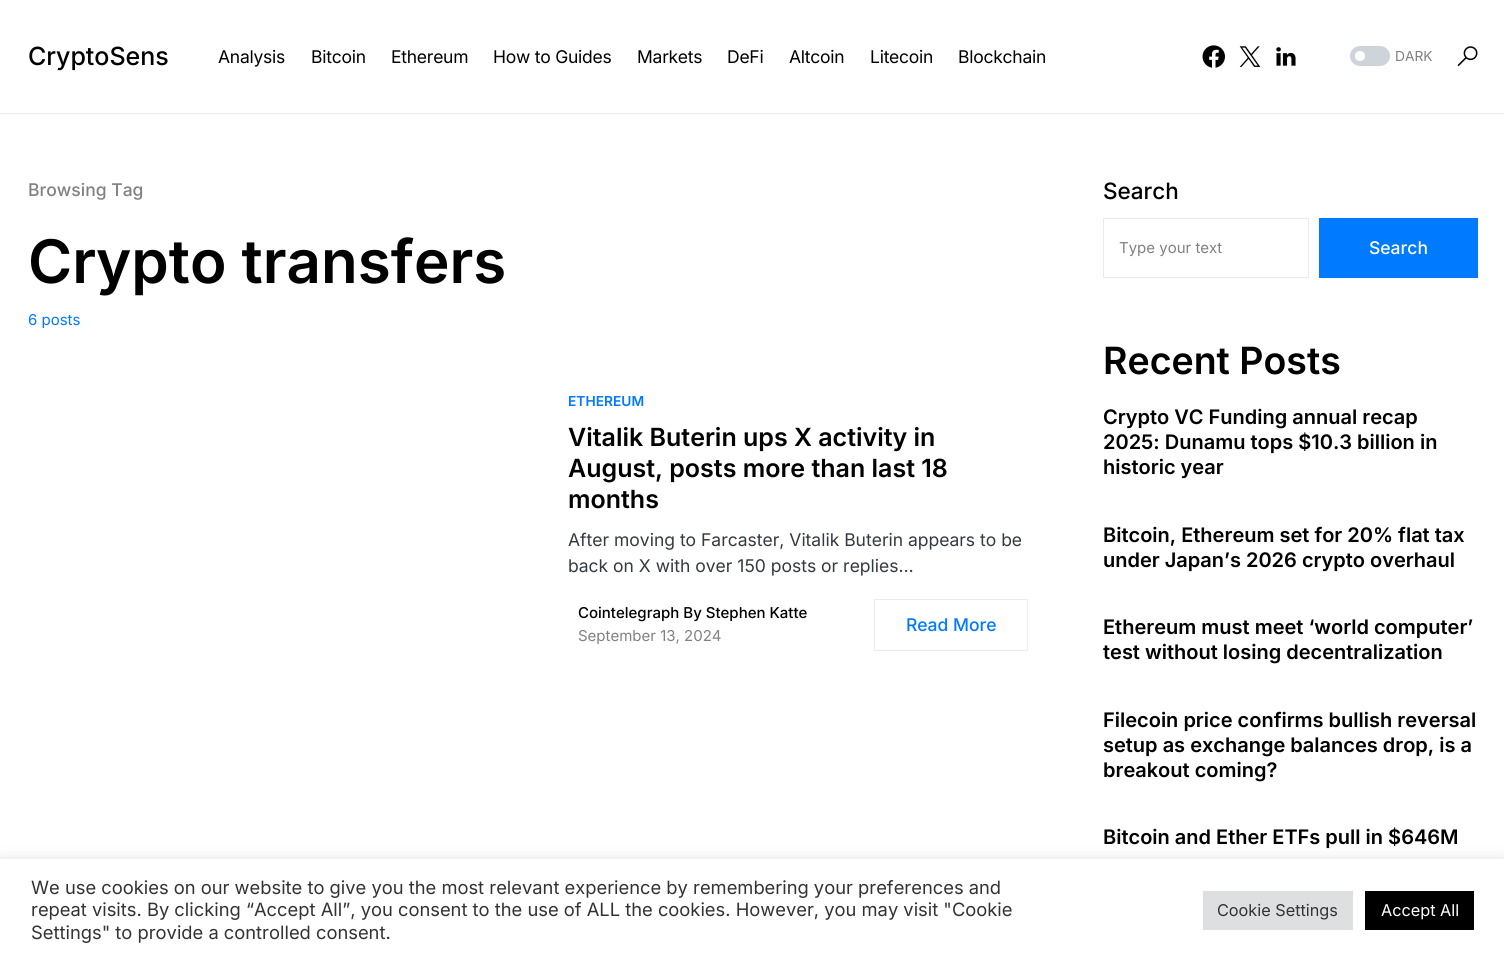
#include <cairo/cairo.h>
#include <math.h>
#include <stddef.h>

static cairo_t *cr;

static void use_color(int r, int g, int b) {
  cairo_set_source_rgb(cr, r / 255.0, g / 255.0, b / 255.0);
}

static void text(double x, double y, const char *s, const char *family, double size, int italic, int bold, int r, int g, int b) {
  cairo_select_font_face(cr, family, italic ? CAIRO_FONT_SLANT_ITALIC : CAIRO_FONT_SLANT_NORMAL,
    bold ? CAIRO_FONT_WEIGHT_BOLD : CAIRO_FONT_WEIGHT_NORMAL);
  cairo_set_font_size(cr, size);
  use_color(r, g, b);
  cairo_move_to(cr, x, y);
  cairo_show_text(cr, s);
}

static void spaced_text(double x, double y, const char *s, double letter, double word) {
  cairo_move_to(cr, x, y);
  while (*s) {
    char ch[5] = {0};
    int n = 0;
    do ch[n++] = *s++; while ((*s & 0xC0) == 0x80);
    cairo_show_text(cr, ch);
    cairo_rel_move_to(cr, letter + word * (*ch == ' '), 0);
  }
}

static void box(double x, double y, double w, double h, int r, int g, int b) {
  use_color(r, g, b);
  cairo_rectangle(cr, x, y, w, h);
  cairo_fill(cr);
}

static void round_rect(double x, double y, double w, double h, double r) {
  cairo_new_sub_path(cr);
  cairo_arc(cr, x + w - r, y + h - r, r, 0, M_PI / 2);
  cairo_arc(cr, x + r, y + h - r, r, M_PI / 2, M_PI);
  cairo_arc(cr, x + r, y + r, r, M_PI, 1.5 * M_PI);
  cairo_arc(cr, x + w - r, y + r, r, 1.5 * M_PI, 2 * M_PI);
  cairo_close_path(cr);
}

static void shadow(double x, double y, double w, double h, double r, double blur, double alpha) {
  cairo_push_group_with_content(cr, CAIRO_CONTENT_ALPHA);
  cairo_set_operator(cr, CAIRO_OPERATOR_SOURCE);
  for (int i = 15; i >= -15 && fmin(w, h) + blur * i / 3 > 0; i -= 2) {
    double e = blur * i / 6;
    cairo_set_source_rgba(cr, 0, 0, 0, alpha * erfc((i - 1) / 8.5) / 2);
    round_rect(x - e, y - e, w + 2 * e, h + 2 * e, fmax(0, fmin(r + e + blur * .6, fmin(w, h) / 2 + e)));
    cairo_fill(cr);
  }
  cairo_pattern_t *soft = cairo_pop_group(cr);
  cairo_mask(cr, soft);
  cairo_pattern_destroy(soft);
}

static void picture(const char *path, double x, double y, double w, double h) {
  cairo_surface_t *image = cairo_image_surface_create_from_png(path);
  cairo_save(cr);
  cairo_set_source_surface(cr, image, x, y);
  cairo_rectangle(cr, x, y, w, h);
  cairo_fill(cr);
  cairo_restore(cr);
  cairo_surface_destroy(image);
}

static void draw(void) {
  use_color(255, 255, 255);
  cairo_paint(cr);
  box(0, 113, 1504, 1, 233, 236, 239);
  picture("img_01.png", 1202, 45, 23, 23);
  picture("img_02.png", 1239, 46, 22, 21);
  picture("img_03.png", 1276, 47, 20, 19);
  use_color(206, 212, 218);
  round_rect(1350, 46, 40, 20, 10);
  cairo_fill(cr);
  use_color(255, 255, 255);
  cairo_arc(cr, 1360, 56, 5, 0, 2 * M_PI);
  cairo_fill(cr);
  picture("img_04.png", 1457, 46, 21, 21);
  cairo_rectangle(cr, 874.5, 599.5, 153, 51);
  use_color(233, 236, 239);
  cairo_set_line_width(cr, 1);
  cairo_stroke(cr);
  cairo_rectangle(cr, 1103.5, 218.5, 205, 59);
  cairo_stroke(cr);
  box(1319, 218, 159, 60, 0, 122, 255);
  use_color(172, 171, 171);
  shadow(0, 858, 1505, 102, 0, 6, 0.3);
  box(0, 859, 1504, 102, 255, 255, 255);
  box(1203, 891, 150, 39, 222, 223, 224);
  box(1365, 891, 109, 39, 0, 0, 0);
  text(28, 65, "CryptoSens", "Inter Medium", 25, 0, 0, 0, 0, 0);
  cairo_select_font_face(cr, "Inter", CAIRO_FONT_SLANT_NORMAL, CAIRO_FONT_WEIGHT_NORMAL);
  cairo_set_font_size(cr, 17.5);
  spaced_text(218, 63, "Analysis", -0.25, 0);
  spaced_text(311, 63, "Bitcoin", -0.25, 0);
  spaced_text(391, 63, "Ethereum", -0.25, 0);
  spaced_text(493, 63, "How to Guides", -0.25, 0);
  spaced_text(637, 63, "Markets", -0.25, 0);
  spaced_text(727, 63, "DeFi", -0.25, 0);
  spaced_text(789, 63, "Altcoin", -0.25, 0);
  spaced_text(870, 63, "Litecoin", -0.25, 0);
  spaced_text(958, 63, "Blockchain", -0.25, 0);
  text(1395, 61, "DARK", "Inter", 13.75, 0, 0, 129, 129, 129);
  text(28, 196, "Browsing Tag", "Inter Medium", 17.5, 0, 0, 129, 129, 129);
  text(28, 283, "Crypto transfers", "Inter SemiBold", 60, 0, 0, 0, 0, 0);
  text(28, 325, "6 posts", "Inter", 15, 0, 0, 0, 122, 255);
  text(568, 406, "ETHEREUM", "Inter SemiBold", 13.75, 0, 0, 0, 122, 255);
  text(568, 446, "Vitalik Buterin ups X activity in", "Inter SemiBold", 25, 0, 0, 0, 0, 0);
  text(568, 477, "August, posts more than last 18", "Inter SemiBold", 25, 0, 0, 0, 0, 0);
  text(568, 508, "months", "Inter SemiBold", 25, 0, 0, 0, 0, 0);
  text(568, 546, "After moving to Farcaster, Vitalik Buterin appears to be", "Inter", 17.5, 0, 0, 52, 58, 64);
  text(568, 572, "back on X with over 150 posts or replies…", "Inter", 17.5, 0, 0, 52, 58, 64);
  text(578, 618, "Cointelegraph By Stephen Katte", "Inter Medium", 15, 0, 0, 0, 0, 0);
  text(578, 641, "September 13, 2024", "Inter", 15, 0, 0, 129, 129, 129);
  text(906, 631, "Read More", "Inter Medium", 17.5, 0, 0, 0, 122, 255);
  text(1103, 199, "Search", "Inter Medium", 22.5, 0, 0, 0, 0, 0);
  text(1119, 253, "Type your text", "Inter", 15, 0, 0, 129, 129, 129);
  text(1369, 254, "Search", "Inter Medium", 17.5, 0, 0, 255, 255, 255);
  text(1103, 374, "Recent Posts", "Inter SemiBold", 37.5, 0, 0, 0, 0, 0);
  text(1103, 424, "Crypto VC Funding annual recap", "Inter SemiBold", 20, 0, 0, 0, 0, 0);
  text(1103, 449, "2025: Dunamu tops $10.3 billion in", "Inter SemiBold", 20, 0, 0, 0, 0, 0);
  text(1103, 474, "historic year", "Inter SemiBold", 20, 0, 0, 0, 0, 0);
  text(1103, 542, "Bitcoin, Ethereum set for 20% flat tax", "Inter SemiBold", 20, 0, 0, 0, 0, 0);
  text(1103, 567, "under Japan’s 2026 crypto overhaul", "Inter SemiBold", 20, 0, 0, 0, 0, 0);
  text(1103, 634, "Ethereum must meet ‘world computer’", "Inter SemiBold", 20, 0, 0, 0, 0, 0);
  text(1103, 659, "test without losing decentralization", "Inter SemiBold", 20, 0, 0, 0, 0, 0);
  text(1103, 727, "Filecoin price confirms bullish reversal", "Inter SemiBold", 20, 0, 0, 0, 0, 0);
  text(1103, 752, "setup as exchange balances drop, is a", "Inter SemiBold", 20, 0, 0, 0, 0, 0);
  text(1103, 777, "breakout coming?", "Inter SemiBold", 20, 0, 0, 0, 0, 0);
  text(1103, 844, "Bitcoin and Ether ETFs pull in $646M", "Inter SemiBold", 20, 0, 0, 0, 0, 0);
  text(31, 894, "We use cookies on our website to give you the most relevant experience by remembering your preferences and", "Inter", 18.33, 0, 0, 51, 51, 51);
  text(31, 916, "repeat visits. By clicking “Accept All”, you consent to the use of ALL the cookies. However, you may visit \"Cookie", "Inter", 18.33, 0, 0, 51, 51, 51);
  text(31, 939, "Settings\" to provide a controlled consent.", "Inter", 18.33, 0, 0, 51, 51, 51);
  text(1217, 916, "Cookie Settings", "Inter", 16.25, 0, 0, 51, 51, 51);
  text(1381, 916, "Accept All", "Inter", 16.25, 0, 0, 255, 255, 255);
}

int main(void) {
  cairo_surface_t *surface = cairo_image_surface_create(CAIRO_FORMAT_RGB24, 1504, 961);
  cr = cairo_create(surface);
  cairo_font_options_t *options = cairo_font_options_create();
  cairo_font_options_set_hint_metrics(options, CAIRO_HINT_METRICS_OFF);
  cairo_font_options_set_hint_style(options, CAIRO_HINT_STYLE_NONE);
  cairo_set_font_options(cr, options);
  cairo_set_miter_limit(cr, 4);
  draw();
  cairo_surface_write_to_png(surface, "out.png");
  cairo_font_options_destroy(options);
  cairo_destroy(cr);
  cairo_surface_destroy(surface);
  return 0;
}
